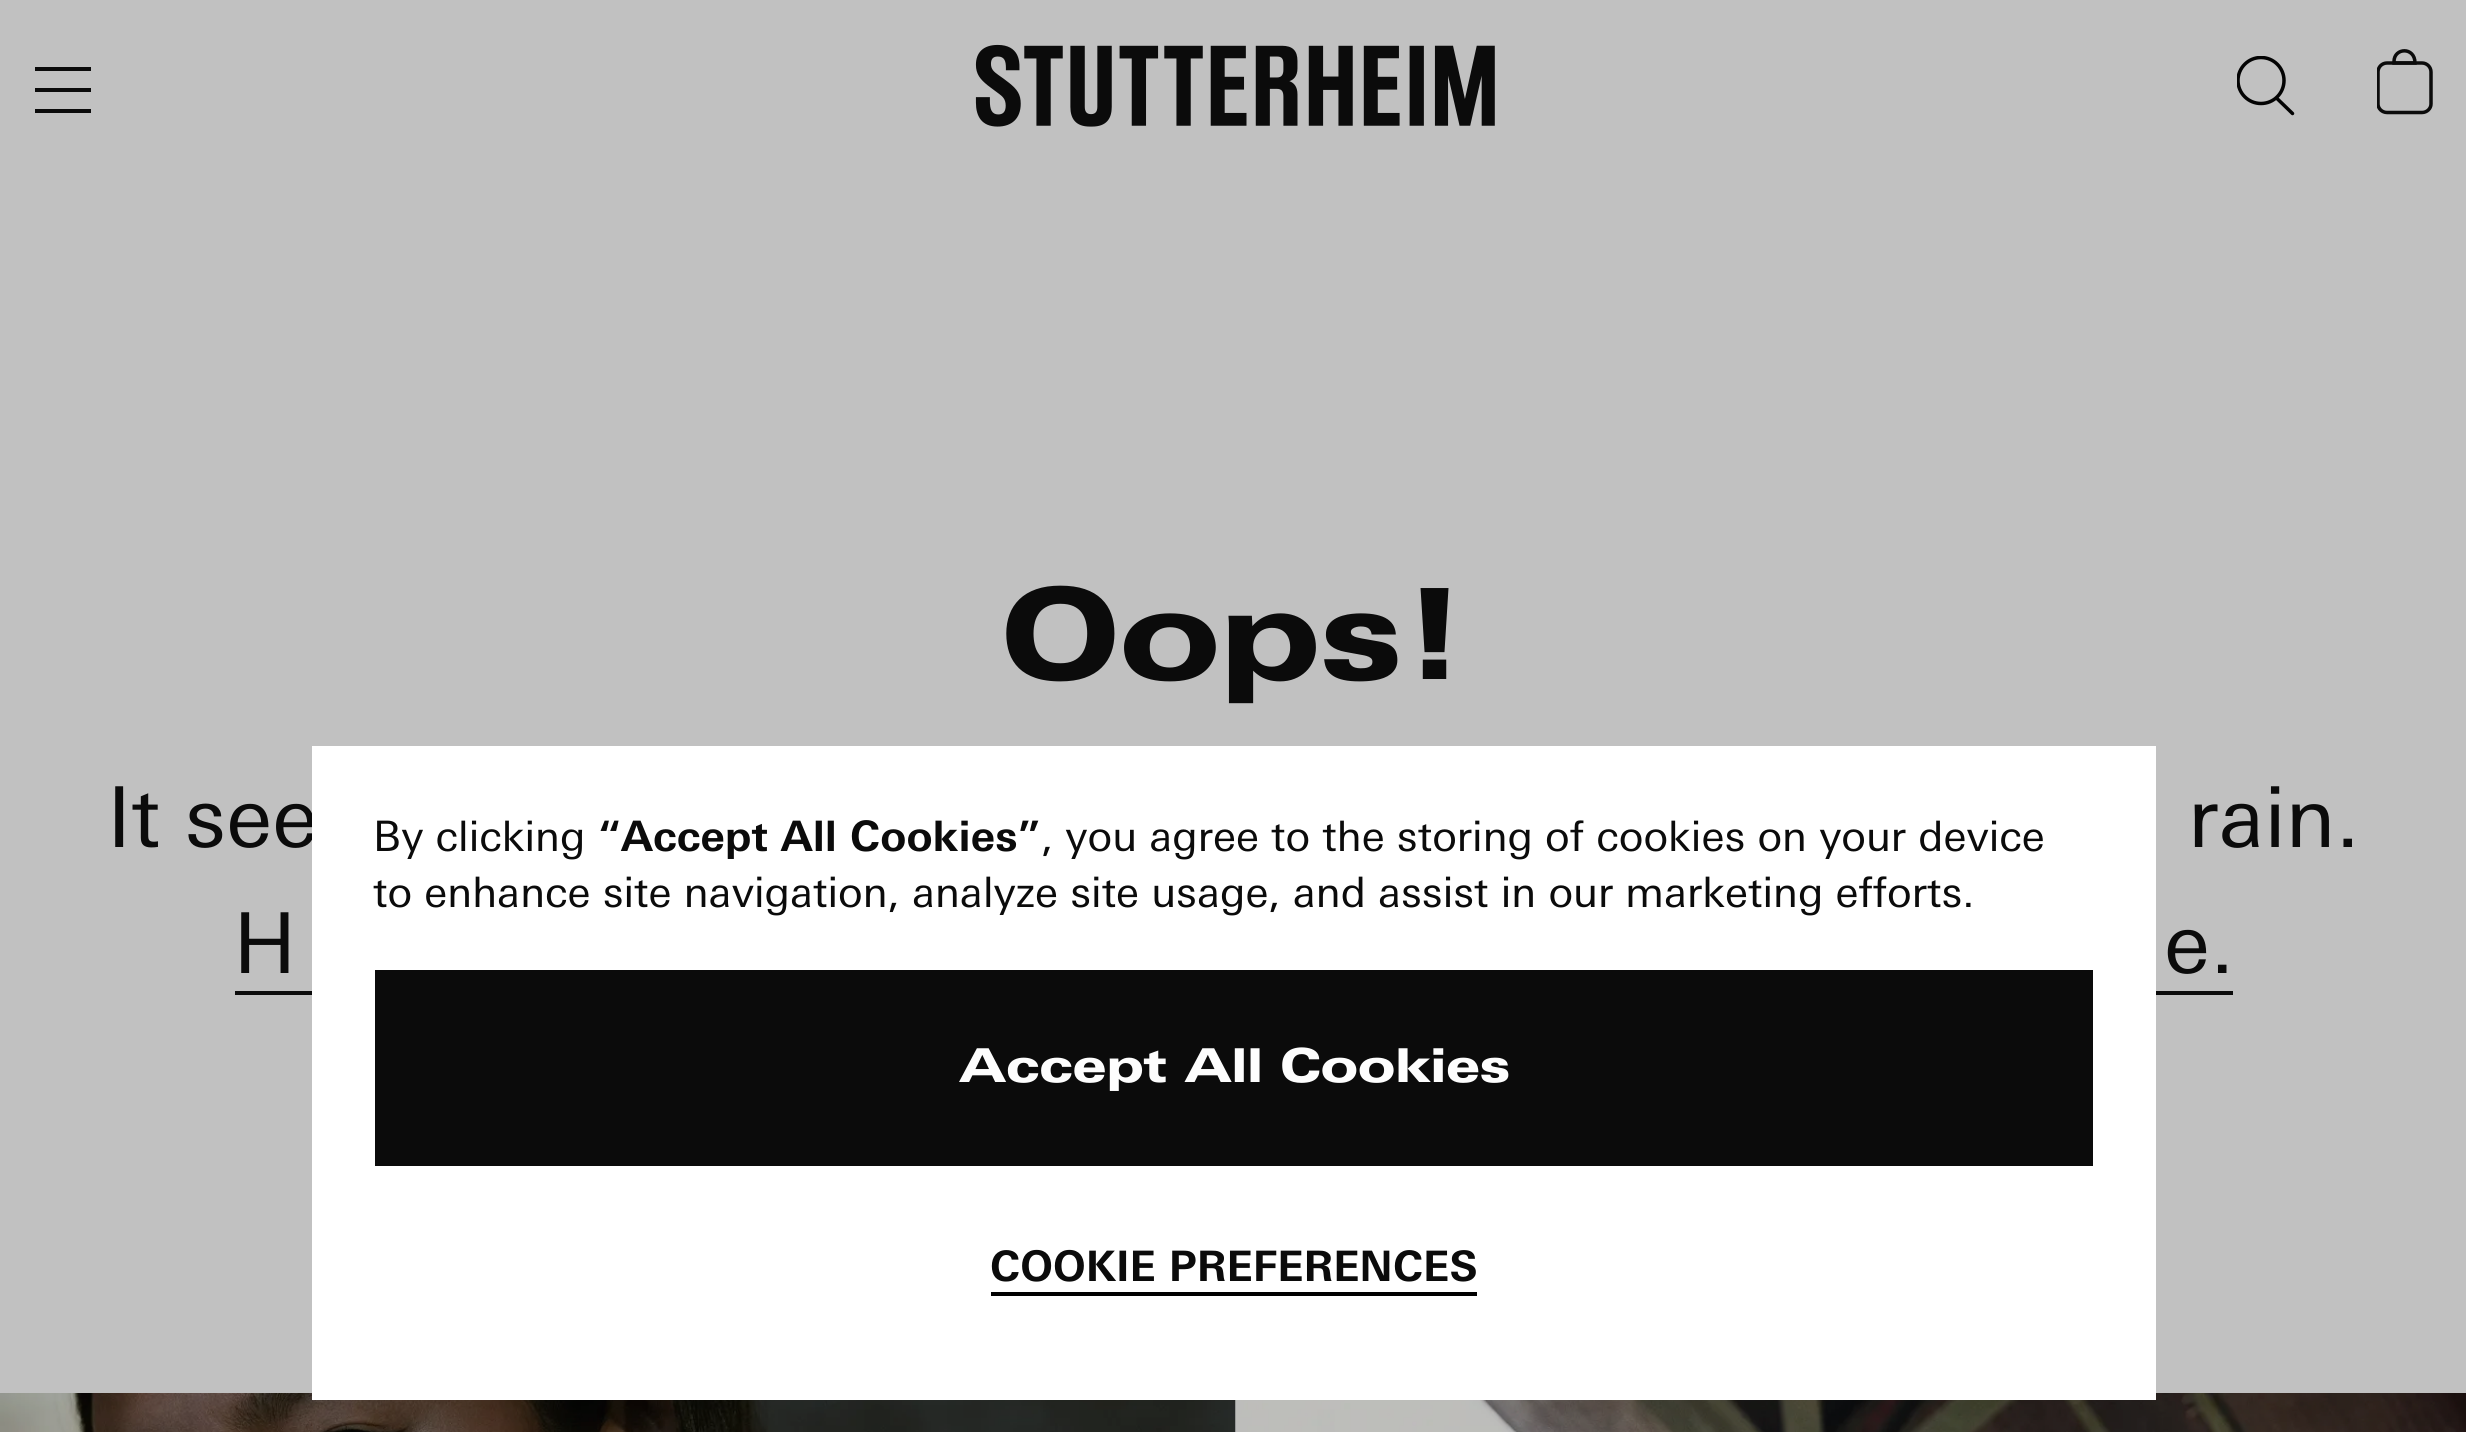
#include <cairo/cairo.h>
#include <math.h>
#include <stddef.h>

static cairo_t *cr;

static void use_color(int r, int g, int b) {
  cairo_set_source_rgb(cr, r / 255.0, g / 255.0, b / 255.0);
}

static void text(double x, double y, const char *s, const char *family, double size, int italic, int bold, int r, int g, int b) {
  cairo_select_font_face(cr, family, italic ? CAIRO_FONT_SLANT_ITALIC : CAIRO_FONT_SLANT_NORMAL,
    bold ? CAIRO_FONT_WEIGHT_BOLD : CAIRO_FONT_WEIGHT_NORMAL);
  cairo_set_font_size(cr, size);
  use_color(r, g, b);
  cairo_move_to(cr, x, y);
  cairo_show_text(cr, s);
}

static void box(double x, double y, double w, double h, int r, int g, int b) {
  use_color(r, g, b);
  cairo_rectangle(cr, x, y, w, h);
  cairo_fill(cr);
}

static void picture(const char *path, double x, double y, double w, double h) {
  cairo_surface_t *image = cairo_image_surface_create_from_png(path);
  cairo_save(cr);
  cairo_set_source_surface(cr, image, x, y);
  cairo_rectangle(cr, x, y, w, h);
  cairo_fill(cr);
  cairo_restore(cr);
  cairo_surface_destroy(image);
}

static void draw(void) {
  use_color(193, 193, 193);
  cairo_paint(cr);
  box(35, 67, 56, 4, 11, 11, 11);
  box(35, 88, 56, 4, 11, 11, 11);
  box(35, 109, 56, 4, 11, 11, 11);
  picture("img_01.png", 975, 44, 520, 83);
  cairo_save(cr);
  cairo_rectangle(cr, 2237, 56, 59, 60);
  cairo_clip(cr);
  cairo_arc(cr, 2261, 80.5, 23, 0, 2 * M_PI);
  use_color(3, 3, 3);
  cairo_set_line_width(cr, 3.5);
  cairo_stroke(cr);
  cairo_restore(cr);
  cairo_new_path(cr);
  cairo_move_to(cr, 2277.5, 99);
  cairo_line_to(cr, 2292.5, 113.5);
  use_color(3, 3, 3);
  cairo_set_line_width(cr, 3.5);
  cairo_set_line_cap(cr, CAIRO_LINE_CAP_ROUND);
  cairo_stroke(cr);
  cairo_save(cr);
  cairo_rectangle(cr, 2377, 49, 56, 67);
  cairo_clip(cr);
  cairo_new_path(cr);
  cairo_move_to(cr, 2378, 72);
  cairo_curve_to(cr, 2378, 67, 2382, 63, 2387, 63);
  cairo_line_to(cr, 2422, 63);
  cairo_curve_to(cr, 2427, 63, 2431, 67, 2431, 72);
  cairo_line_to(cr, 2431, 104);
  cairo_curve_to(cr, 2431, 108.5, 2427, 112.5, 2422, 112.5);
  cairo_line_to(cr, 2387, 112.5);
  cairo_curve_to(cr, 2382, 112.5, 2378, 108.5, 2378, 104);
  cairo_close_path(cr);
  use_color(11, 11, 11);
  cairo_set_line_cap(cr, CAIRO_LINE_CAP_BUTT);
  cairo_stroke(cr);
  cairo_restore(cr);
  cairo_new_path(cr);
  cairo_move_to(cr, 2394, 61.5);
  cairo_curve_to(cr, 2394, 47.5, 2415, 46.5, 2415, 63);
  cairo_line_to(cr, 2394, 63);
  cairo_close_path(cr);
  use_color(11, 11, 11);
  cairo_set_line_cap(cr, CAIRO_LINE_CAP_BUTT);
  cairo_stroke(cr);
  box(235, 991, 1998, 4, 11, 11, 11);
  picture("img_02.png", 0, 1393, 1236, 39);
  picture("img_03.png", 1235, 1393, 1231, 39);
  text(1001, 679, "Oops!", "Univers Black", 126, 0, 0, 11, 11, 11);
  text(107, 847, "It see", "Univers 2 Black", 84, 0, 0, 11, 11, 11);
  text(2188, 847, "rain.", "Univers 2 Black", 84, 0, 0, 11, 11, 11);
  text(233, 973, "H", "Univers 2 Black", 84, 0, 0, 11, 11, 11);
  text(2164, 973, "e.", "Univers 2 Black", 84, 0, 0, 11, 11, 11);
  box(312, 746, 1844, 654, 255, 255, 255);
  text(373, 851, "By clicking", "Univers 2 Black", 42, 0, 0, 11, 11, 11);
  text(598, 851, "“Accept All Cookies”", "Univers", 42, 0, 1, 11, 11, 11);
  text(1041, 851, ", you agree to the storing of cookies on your device", "Univers 2 Black", 42, 0, 0, 11, 11, 11);
  text(373, 907, "to enhance site navigation, analyze site usage, and assist in our marketing efforts.", "Univers 2 Black", 42, 0, 0, 11, 11, 11);
  box(375, 970, 1718, 196, 11, 11, 11);
  text(959, 1082, "Accept All Cookies", "Univers Black", 46.75, 0, 0, 253, 253, 253);
  text(990, 1281, "COOKIE PREFERENCES", "Univers", 42, 0, 1, 11, 11, 11);
  box(991, 1292, 486, 4, 0, 0, 0);
}

int main(void) {
  cairo_surface_t *surface = cairo_image_surface_create(CAIRO_FORMAT_RGB24, 2466, 1432);
  cr = cairo_create(surface);
  cairo_font_options_t *options = cairo_font_options_create();
  cairo_font_options_set_hint_metrics(options, CAIRO_HINT_METRICS_OFF);
  cairo_font_options_set_hint_style(options, CAIRO_HINT_STYLE_NONE);
  cairo_set_font_options(cr, options);
  cairo_set_miter_limit(cr, 4);
  draw();
  cairo_surface_write_to_png(surface, "out.png");
  cairo_font_options_destroy(options);
  cairo_destroy(cr);
  cairo_surface_destroy(surface);
  return 0;
}
